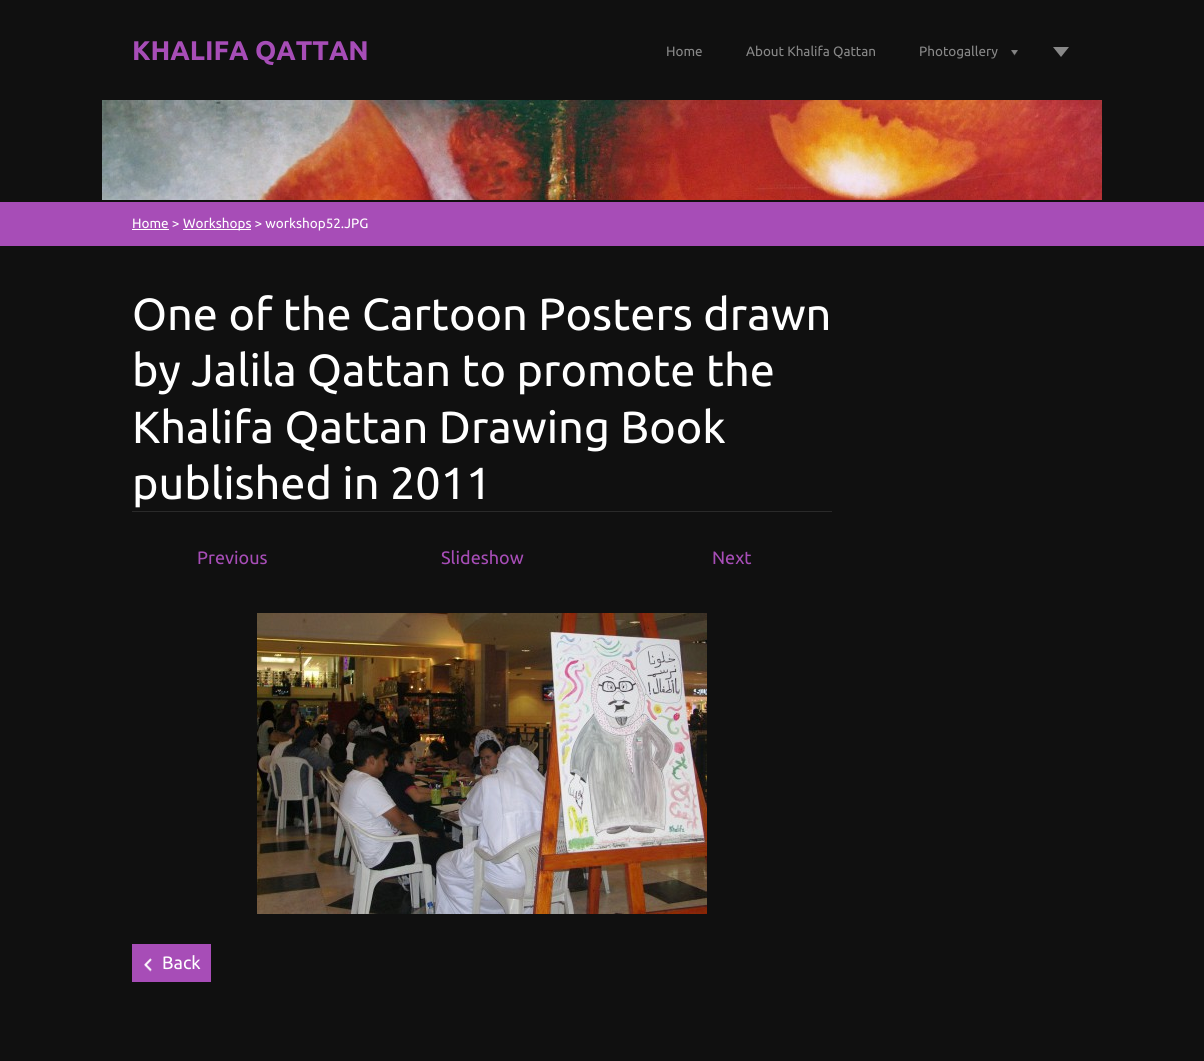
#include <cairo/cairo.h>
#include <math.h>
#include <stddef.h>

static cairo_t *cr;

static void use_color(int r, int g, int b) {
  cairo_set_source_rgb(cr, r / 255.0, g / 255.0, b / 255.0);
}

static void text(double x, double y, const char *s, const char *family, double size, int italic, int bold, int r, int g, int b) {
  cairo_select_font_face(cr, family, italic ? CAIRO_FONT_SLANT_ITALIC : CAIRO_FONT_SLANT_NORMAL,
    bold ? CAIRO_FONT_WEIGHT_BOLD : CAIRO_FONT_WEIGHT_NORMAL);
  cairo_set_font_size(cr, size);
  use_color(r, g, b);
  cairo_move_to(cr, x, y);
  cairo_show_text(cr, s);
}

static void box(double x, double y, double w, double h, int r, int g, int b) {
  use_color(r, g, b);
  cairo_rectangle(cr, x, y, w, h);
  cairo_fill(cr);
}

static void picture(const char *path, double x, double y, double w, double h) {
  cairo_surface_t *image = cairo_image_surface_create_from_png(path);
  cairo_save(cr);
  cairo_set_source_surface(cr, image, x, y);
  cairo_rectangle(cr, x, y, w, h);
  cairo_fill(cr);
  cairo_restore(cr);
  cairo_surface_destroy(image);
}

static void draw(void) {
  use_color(16, 16, 16);
  cairo_paint(cr);
  picture("img_01.png", 1011, 50, 7, 6);
  use_color(136, 136, 136);
  cairo_new_path(cr);
  cairo_move_to(cr, 1053, 47);
  cairo_line_to(cr, 1069, 47);
  cairo_line_to(cr, 1061, 57);
  cairo_close_path(cr);
  cairo_fill(cr);
  picture("img_02.png", 102, 100, 1000, 100);
  box(0, 202, 1204, 44, 167, 77, 183);
  box(132, 229, 37, 1, 255, 255, 255);
  box(183, 229, 68, 1, 255, 255, 255);
  box(132, 511, 700, 1, 42, 42, 42);
  picture("img_03.png", 257, 613, 450, 301);
  box(132, 944, 79, 38, 167, 77, 183);
  picture("img_04.png", 144, 958, 8, 14);
  text(132, 60, "KHALIFA QATTAN", "Ubuntu", 27, 0, 1, 167, 77, 183);
  text(666, 56, "Home", "Ubuntu", 13.5, 0, 0, 136, 136, 136);
  text(746, 56, "About Khalifa Qattan", "Ubuntu", 13.5, 0, 0, 136, 136, 136);
  text(919, 56, "Photogallery", "Ubuntu", 13.5, 0, 0, 136, 136, 136);
  text(132, 228, "Home >", "Ubuntu", 13.5, 0, 0, 255, 255, 255);
  text(183, 228, "Workshops > workshop52.JPG", "Ubuntu", 13.5, 0, 0, 255, 255, 255);
  text(132, 330, "One of the Cartoon Posters drawn", "Ubuntu", 45, 0, 0, 255, 255, 255);
  text(132, 386, "by Jalila Qattan to promote the", "Ubuntu", 45, 0, 0, 255, 255, 255);
  text(132, 443, "Khalifa Qattan Drawing Book", "Ubuntu", 45, 0, 0, 255, 255, 255);
  text(132, 499, "published in 2011", "Ubuntu", 45, 0, 0, 255, 255, 255);
  text(197, 564, "Previous", "Ubuntu", 18, 0, 0, 167, 77, 183);
  text(441, 564, "Slideshow", "Ubuntu", 18, 0, 0, 167, 77, 183);
  text(712, 564, "Next", "Ubuntu", 18, 0, 0, 167, 77, 183);
  text(162, 969, "Back", "Ubuntu", 18, 0, 0, 255, 255, 255);
}

int main(void) {
  cairo_surface_t *surface = cairo_image_surface_create(CAIRO_FORMAT_RGB24, 1204, 1061);
  cr = cairo_create(surface);
  cairo_font_options_t *options = cairo_font_options_create();
  cairo_font_options_set_hint_metrics(options, CAIRO_HINT_METRICS_OFF);
  cairo_font_options_set_hint_style(options, CAIRO_HINT_STYLE_NONE);
  cairo_set_font_options(cr, options);
  cairo_set_miter_limit(cr, 4);
  draw();
  cairo_surface_write_to_png(surface, "out.png");
  cairo_font_options_destroy(options);
  cairo_destroy(cr);
  cairo_surface_destroy(surface);
  return 0;
}
